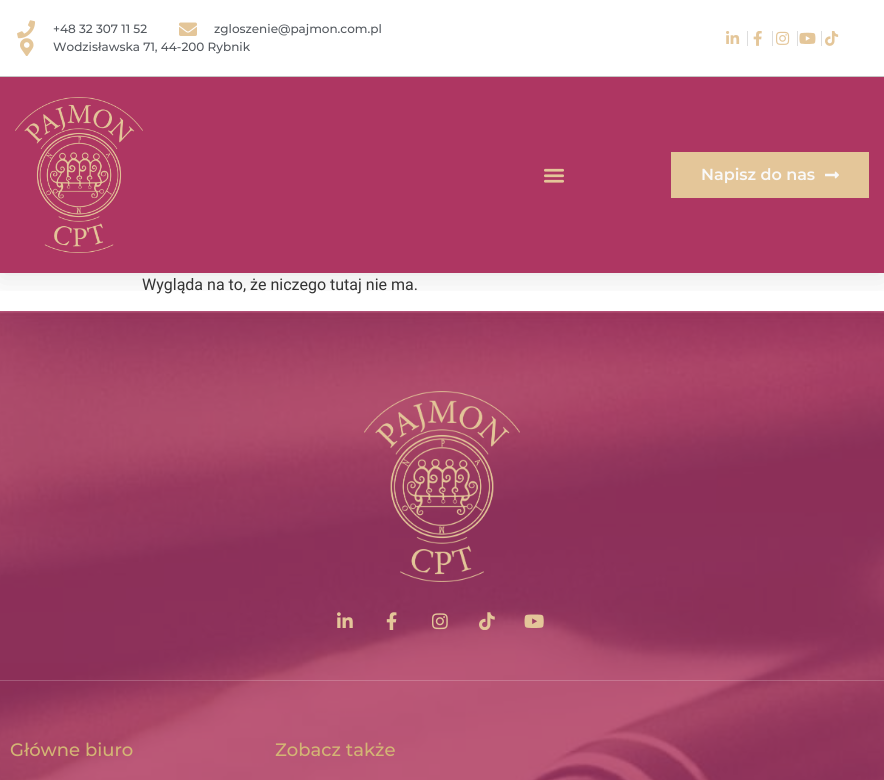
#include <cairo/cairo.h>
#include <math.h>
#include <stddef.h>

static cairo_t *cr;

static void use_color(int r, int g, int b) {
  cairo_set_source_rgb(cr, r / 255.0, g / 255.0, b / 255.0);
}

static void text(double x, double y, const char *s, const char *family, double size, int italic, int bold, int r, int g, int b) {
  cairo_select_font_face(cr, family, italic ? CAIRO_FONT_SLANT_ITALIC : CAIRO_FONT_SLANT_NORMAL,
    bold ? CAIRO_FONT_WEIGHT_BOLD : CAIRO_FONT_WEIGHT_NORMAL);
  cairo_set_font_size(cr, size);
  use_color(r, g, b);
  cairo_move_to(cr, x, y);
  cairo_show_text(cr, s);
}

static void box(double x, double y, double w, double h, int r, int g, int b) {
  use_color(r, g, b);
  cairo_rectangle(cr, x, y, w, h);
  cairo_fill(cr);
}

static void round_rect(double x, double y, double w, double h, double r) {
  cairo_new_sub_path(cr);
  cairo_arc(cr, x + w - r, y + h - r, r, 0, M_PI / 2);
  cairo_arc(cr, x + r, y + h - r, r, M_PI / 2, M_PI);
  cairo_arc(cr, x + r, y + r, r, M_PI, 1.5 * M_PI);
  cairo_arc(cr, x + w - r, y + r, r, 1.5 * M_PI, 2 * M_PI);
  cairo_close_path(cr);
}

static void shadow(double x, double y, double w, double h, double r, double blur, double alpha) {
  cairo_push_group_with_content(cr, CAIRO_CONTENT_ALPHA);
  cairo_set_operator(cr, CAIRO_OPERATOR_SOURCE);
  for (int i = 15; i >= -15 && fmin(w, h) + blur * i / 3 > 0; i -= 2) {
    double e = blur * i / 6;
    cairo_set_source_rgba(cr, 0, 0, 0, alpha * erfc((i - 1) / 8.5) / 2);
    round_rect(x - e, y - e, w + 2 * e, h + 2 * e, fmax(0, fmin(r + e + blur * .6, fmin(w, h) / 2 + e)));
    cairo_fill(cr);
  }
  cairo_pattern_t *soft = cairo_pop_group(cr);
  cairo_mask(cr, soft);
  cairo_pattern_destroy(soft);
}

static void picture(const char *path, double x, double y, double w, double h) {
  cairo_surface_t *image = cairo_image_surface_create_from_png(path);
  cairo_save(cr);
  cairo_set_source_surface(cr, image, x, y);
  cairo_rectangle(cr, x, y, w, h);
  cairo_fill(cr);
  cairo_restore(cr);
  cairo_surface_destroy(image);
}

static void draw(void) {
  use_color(255, 255, 255);
  cairo_paint(cr);
  picture("img_12.png", 0, 311, 884, 469);
  cairo_save(cr);
  cairo_rectangle(cr, 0, 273, 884, 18);
  cairo_clip(cr);
  use_color(0, 0, 0);
  shadow(0, 5, 884, 273, 0, 15, 0.1);
  cairo_restore(cr);
  box(0, 76, 884, 1, 198, 197, 196);
  picture("img_01.png", 17, 20, 18, 19);
  picture("img_02.png", 179, 22, 18, 14);
  picture("img_03.png", 20, 38, 14, 18);
  picture("img_04.png", 726, 31, 14, 13);
  box(747, 31, 1, 15, 221, 221, 221);
  picture("img_05.png", 753, 31, 9, 15);
  box(772, 31, 1, 15, 221, 221, 221);
  picture("img_06.png", 776, 31, 14, 14);
  box(797, 31, 1, 15, 221, 221, 221);
  picture("img_07.png", 799, 32, 17, 12);
  box(821, 31, 1, 15, 221, 221, 221);
  picture("img_08.png", 825, 31, 14, 15);
  box(0, 77, 884, 196, 174, 54, 98);
  picture("img_09.png", 15, 97, 128, 156);
  picture("img_10.png", 544, 168, 20, 15);
  box(671, 152, 198, 46, 228, 198, 153);
  picture("img_11.png", 825, 171, 14, 8);
  cairo_set_source_rgba(cr, 1, 1, 1, 0.2);
  cairo_rectangle(cr, 0, 680, 884, 1);
  cairo_fill(cr);
  picture("img_13.png", 364, 391, 156, 191);
  picture("img_14.png", 337, 612, 16, 16);
  picture("img_15.png", 386, 612, 11, 18);
  picture("img_16.png", 432, 613, 16, 17);
  picture("img_17.png", 479, 612, 16, 18);
  picture("img_18.png", 524, 614, 20, 14);
  text(53, 33, "+48 32 307 11 52", "Montserrat Medium", 12, 0, 0, 84, 89, 95);
  text(214, 33, "zgloszenie@pajmon.com.pl", "Montserrat Medium", 12, 0, 0, 84, 89, 95);
  text(53, 51, "Wodzisławska 71, 44-200 Rybnik", "Montserrat Medium", 12, 0, 0, 84, 89, 95);
  text(701, 180, "Napisz do nas", "Montserrat SemiBold", 16, 0, 0, 249, 249, 249);
  text(142, 290, "Wygląda na to, że niczego tutaj nie ma.", "Roboto", 16, 0, 0, 51, 51, 51);
  text(10, 756, "Główne biuro", "Montserrat Medium", 18, 0, 0, 211, 181, 116);
  text(275, 756, "Zobacz także", "Montserrat Medium", 18, 0, 0, 211, 181, 116);
}

int main(void) {
  cairo_surface_t *surface = cairo_image_surface_create(CAIRO_FORMAT_RGB24, 884, 780);
  cr = cairo_create(surface);
  cairo_font_options_t *options = cairo_font_options_create();
  cairo_font_options_set_hint_metrics(options, CAIRO_HINT_METRICS_OFF);
  cairo_font_options_set_hint_style(options, CAIRO_HINT_STYLE_NONE);
  cairo_set_font_options(cr, options);
  cairo_set_miter_limit(cr, 4);
  draw();
  cairo_surface_write_to_png(surface, "out.png");
  cairo_font_options_destroy(options);
  cairo_destroy(cr);
  cairo_surface_destroy(surface);
  return 0;
}
